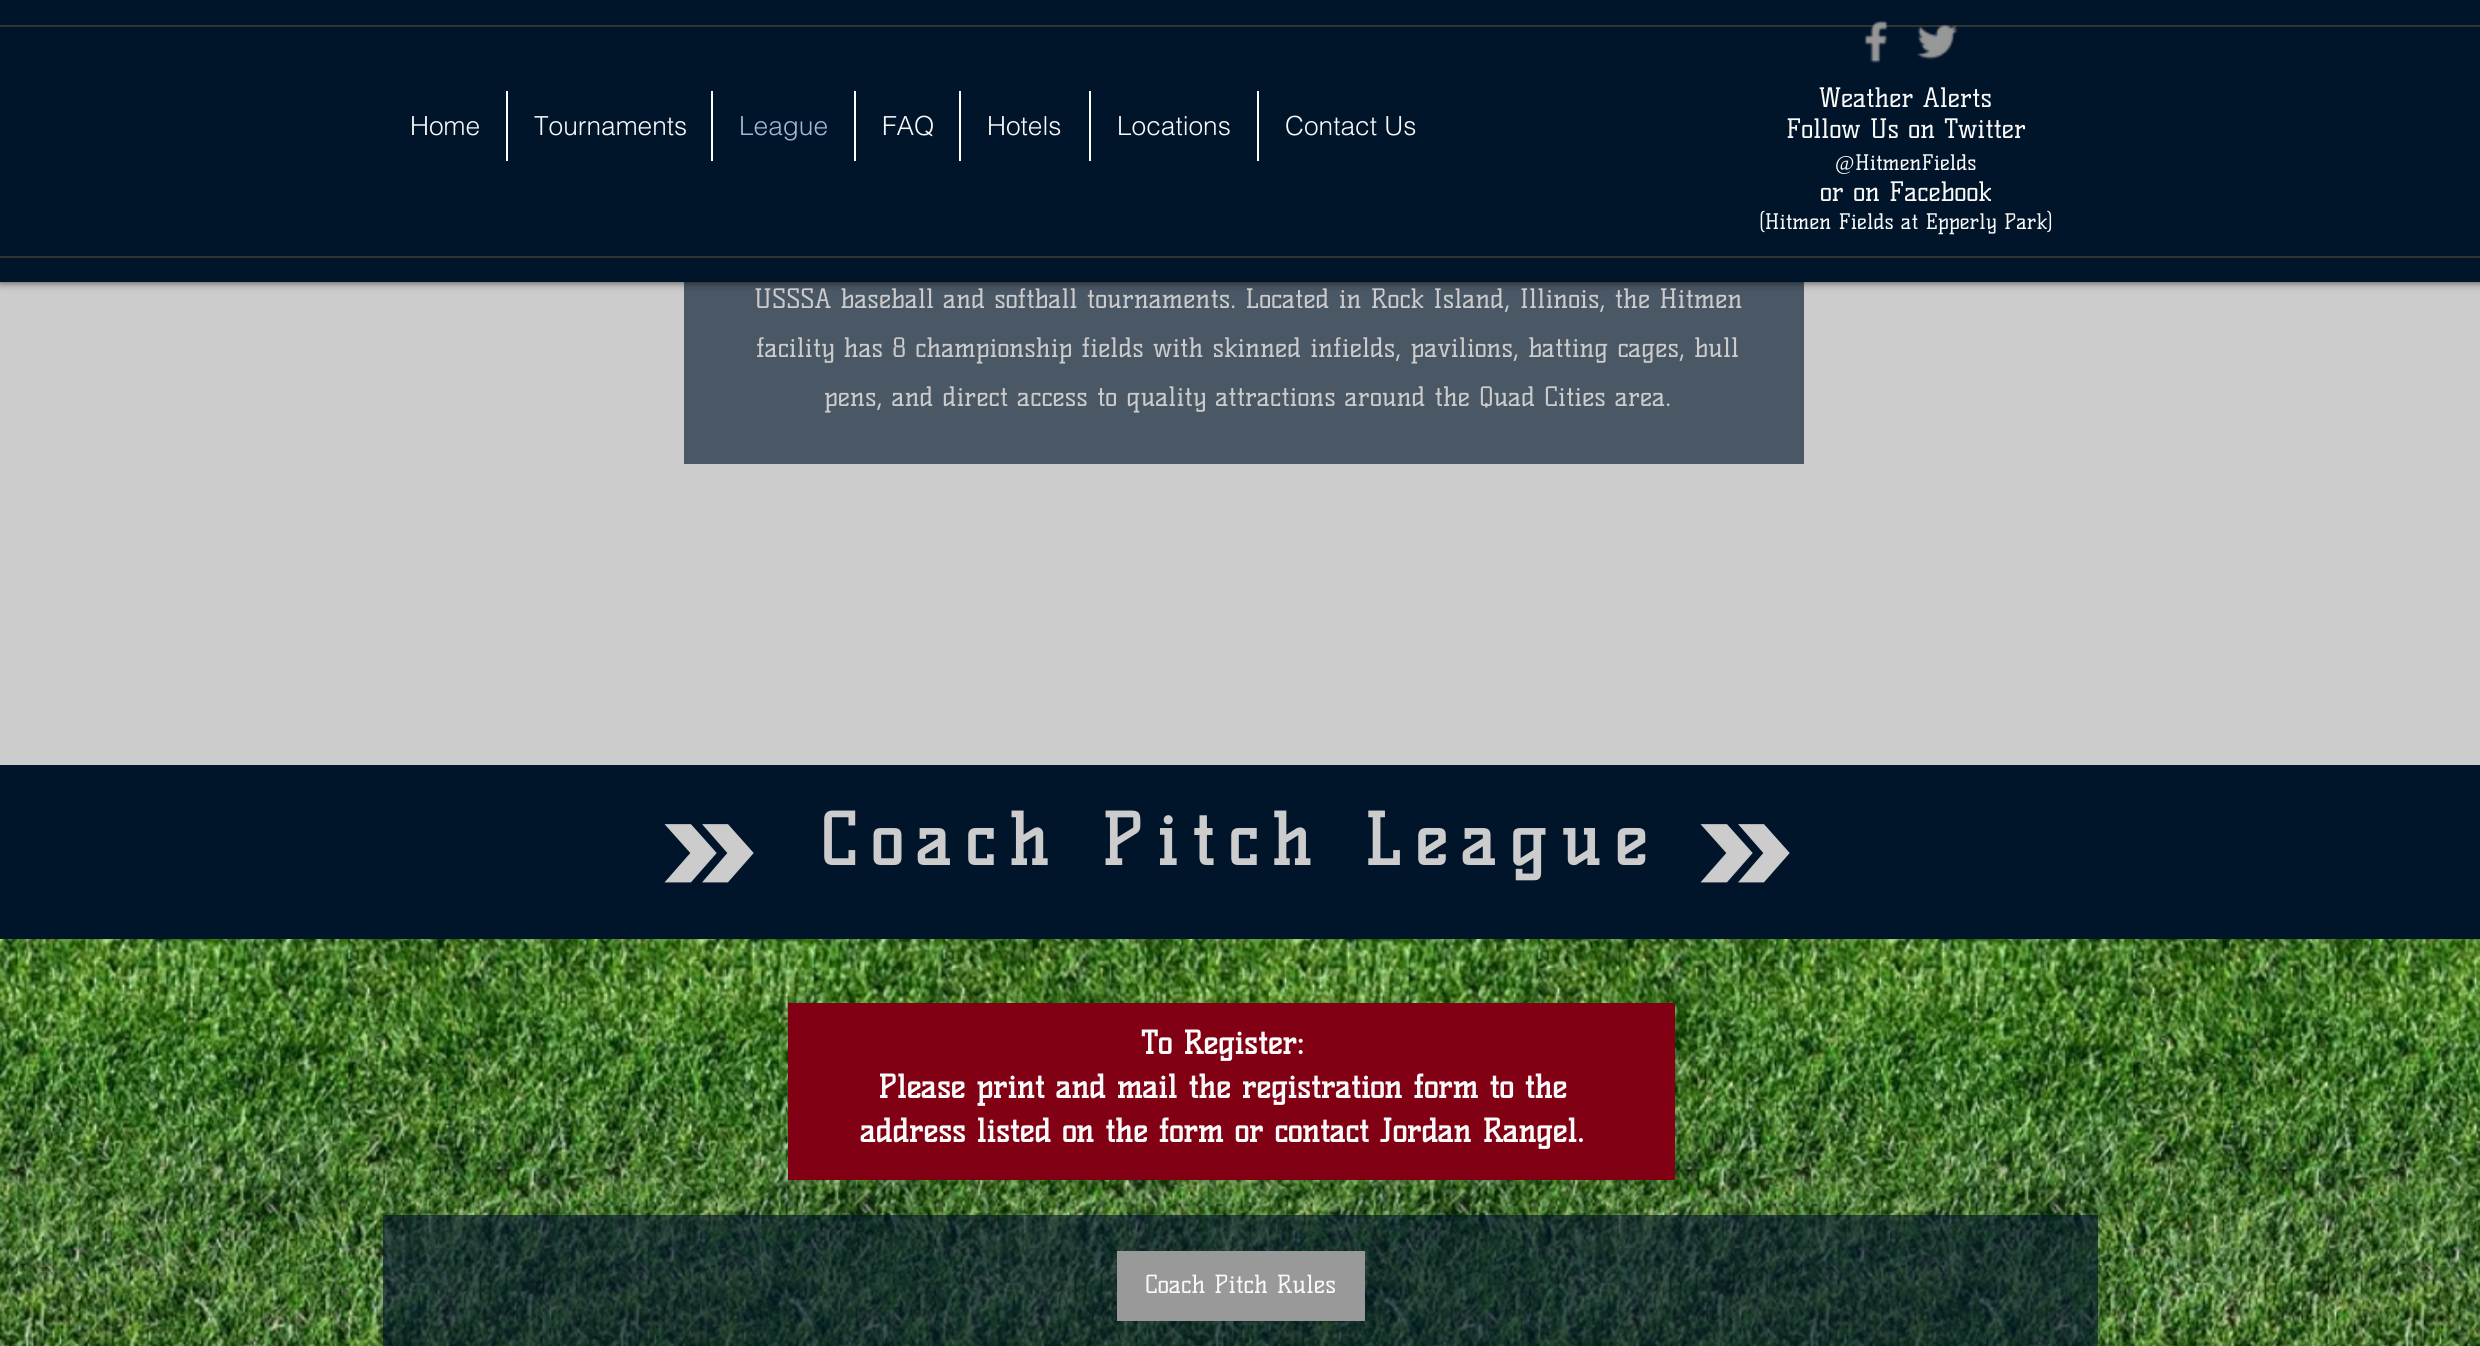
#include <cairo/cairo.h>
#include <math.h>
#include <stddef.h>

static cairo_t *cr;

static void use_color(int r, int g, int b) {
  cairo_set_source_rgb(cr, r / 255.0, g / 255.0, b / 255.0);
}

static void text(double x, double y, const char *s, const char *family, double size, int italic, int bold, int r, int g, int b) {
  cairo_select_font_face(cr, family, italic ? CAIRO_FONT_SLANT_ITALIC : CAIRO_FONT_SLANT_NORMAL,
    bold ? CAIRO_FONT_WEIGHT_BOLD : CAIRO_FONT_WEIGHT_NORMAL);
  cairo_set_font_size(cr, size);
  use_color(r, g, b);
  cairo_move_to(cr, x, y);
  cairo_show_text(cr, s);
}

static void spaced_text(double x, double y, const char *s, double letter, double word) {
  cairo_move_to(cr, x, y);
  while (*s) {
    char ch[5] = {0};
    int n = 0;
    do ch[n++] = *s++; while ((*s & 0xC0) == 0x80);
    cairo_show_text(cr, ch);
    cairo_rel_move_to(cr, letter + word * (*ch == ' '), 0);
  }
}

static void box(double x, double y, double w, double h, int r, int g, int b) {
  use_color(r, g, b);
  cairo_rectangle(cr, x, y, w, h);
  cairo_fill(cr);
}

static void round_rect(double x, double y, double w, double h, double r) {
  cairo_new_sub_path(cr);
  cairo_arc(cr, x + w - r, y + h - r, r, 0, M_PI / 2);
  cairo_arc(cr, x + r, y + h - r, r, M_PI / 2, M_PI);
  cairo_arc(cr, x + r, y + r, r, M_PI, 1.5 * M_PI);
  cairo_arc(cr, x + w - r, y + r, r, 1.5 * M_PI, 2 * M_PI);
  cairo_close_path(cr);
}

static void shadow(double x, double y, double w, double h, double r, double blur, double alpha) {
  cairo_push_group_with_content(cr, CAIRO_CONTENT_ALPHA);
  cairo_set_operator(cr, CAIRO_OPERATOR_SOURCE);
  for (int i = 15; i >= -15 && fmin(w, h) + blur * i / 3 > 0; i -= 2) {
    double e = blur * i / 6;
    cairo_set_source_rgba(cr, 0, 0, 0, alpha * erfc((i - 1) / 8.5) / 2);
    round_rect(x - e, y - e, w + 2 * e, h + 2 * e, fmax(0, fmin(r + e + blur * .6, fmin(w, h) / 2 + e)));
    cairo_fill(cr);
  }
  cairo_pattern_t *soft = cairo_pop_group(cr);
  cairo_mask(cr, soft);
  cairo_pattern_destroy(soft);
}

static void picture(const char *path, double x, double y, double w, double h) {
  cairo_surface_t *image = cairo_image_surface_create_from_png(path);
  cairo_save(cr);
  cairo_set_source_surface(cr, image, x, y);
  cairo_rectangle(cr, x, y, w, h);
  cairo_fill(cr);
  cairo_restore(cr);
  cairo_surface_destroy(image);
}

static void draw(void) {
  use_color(0, 20, 42);
  cairo_paint(cr);
  box(0, 282, 2480, 483, 204, 204, 204);
  box(684, 282, 1120, 182, 74, 87, 101);
  use_color(0, 0, 0);
  shadow(0, 0, 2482, 282, 0, 4.5, 0.7);
  box(0, 0, 2480, 282, 0, 20, 42);
  box(0, 25, 2480, 2, 51, 51, 51);
  box(0, 256, 2480, 2, 51, 51, 51);
  picture("img_01.png", 1864, 20, 24, 44);
  picture("img_02.png", 1917, 24, 41, 36);
  box(506, 91, 2, 70, 255, 255, 255);
  box(711, 91, 2, 70, 255, 255, 255);
  box(854, 91, 2, 70, 255, 255, 255);
  box(959, 91, 2, 70, 255, 255, 255);
  box(1089, 91, 2, 70, 255, 255, 255);
  box(1257, 91, 2, 70, 255, 255, 255);
  use_color(204, 204, 204);
  cairo_new_path(cr);
  cairo_move_to(cr, 691, 825);
  cairo_line_to(cr, 667, 825);
  cairo_line_to(cr, 692, 853);
  cairo_line_to(cr, 667, 881);
  cairo_line_to(cr, 691, 881);
  cairo_line_to(cr, 715, 853);
  cairo_close_path(cr);
  cairo_fill(cr);
  cairo_new_path(cr);
  cairo_move_to(cr, 690.5, 825);
  cairo_line_to(cr, 666.5, 825);
  cairo_line_to(cr, 691.5, 853);
  cairo_line_to(cr, 666.5, 881.5);
  cairo_line_to(cr, 690.5, 881.5);
  cairo_line_to(cr, 715.5, 853);
  cairo_close_path(cr);
  cairo_set_line_width(cr, 1.8);
  cairo_stroke(cr);
  cairo_new_path(cr);
  cairo_move_to(cr, 728, 825);
  cairo_line_to(cr, 704, 825);
  cairo_line_to(cr, 729, 853);
  cairo_line_to(cr, 704, 881);
  cairo_line_to(cr, 728, 881);
  cairo_line_to(cr, 753, 853);
  cairo_close_path(cr);
  cairo_fill(cr);
  cairo_new_path(cr);
  cairo_move_to(cr, 727.5, 825);
  cairo_line_to(cr, 704, 825);
  cairo_line_to(cr, 728.5, 853);
  cairo_line_to(cr, 704, 881.5);
  cairo_line_to(cr, 727.5, 881.5);
  cairo_line_to(cr, 752.5, 853);
  cairo_close_path(cr);
  cairo_stroke(cr);
  cairo_new_path(cr);
  cairo_move_to(cr, 1727, 825);
  cairo_line_to(cr, 1703, 825);
  cairo_line_to(cr, 1728, 853);
  cairo_line_to(cr, 1703, 881);
  cairo_line_to(cr, 1727, 881);
  cairo_line_to(cr, 1751, 853);
  cairo_close_path(cr);
  cairo_fill(cr);
  cairo_new_path(cr);
  cairo_move_to(cr, 1726.5, 825);
  cairo_line_to(cr, 1702.5, 825);
  cairo_line_to(cr, 1727.5, 853);
  cairo_line_to(cr, 1702.5, 881.5);
  cairo_line_to(cr, 1726.5, 881.5);
  cairo_line_to(cr, 1751.5, 853);
  cairo_close_path(cr);
  cairo_stroke(cr);
  cairo_new_path(cr);
  cairo_move_to(cr, 1764, 825);
  cairo_line_to(cr, 1740, 825);
  cairo_line_to(cr, 1765, 853);
  cairo_line_to(cr, 1740, 881);
  cairo_line_to(cr, 1764, 881);
  cairo_line_to(cr, 1789, 853);
  cairo_close_path(cr);
  cairo_fill(cr);
  cairo_new_path(cr);
  cairo_move_to(cr, 1763.5, 825);
  cairo_line_to(cr, 1740, 825);
  cairo_line_to(cr, 1764.5, 853);
  cairo_line_to(cr, 1740, 881.5);
  cairo_line_to(cr, 1763.5, 881.5);
  cairo_line_to(cr, 1788.5, 853);
  cairo_close_path(cr);
  cairo_stroke(cr);
  picture("img_03.png", 0, 939, 2480, 407);
  box(788, 1003, 887, 177, 130, 0, 19);
  cairo_set_source_rgba(cr, 0, 0.078, 0.165, 0.64);
  cairo_rectangle(cr, 383, 1215, 1715, 131);
  cairo_fill(cr);
  box(1117, 1251, 248, 70, 153, 153, 153);
  text(410, 135, "Home", "helvetica Light", 26.25, 0, 0, 250, 250, 250);
  text(534, 135, "Tournaments", "helvetica Light", 26.25, 0, 0, 250, 250, 250);
  text(739, 135, "League", "helvetica Light", 26.25, 0, 0, 159, 184, 212);
  text(882, 135, "FAQ", "helvetica Light", 26.25, 0, 0, 250, 250, 250);
  text(987, 135, "Hotels", "helvetica Light", 26.25, 0, 0, 250, 250, 250);
  text(1117, 135, "Locations", "helvetica Light", 26.25, 0, 0, 250, 250, 250);
  text(1285, 135, "Contact Us", "helvetica Light", 26.25, 0, 0, 250, 250, 250);
  text(1819, 107, "Weather Alerts", "Kelly Slab", 26.25, 0, 0, 250, 250, 250);
  text(1786, 138, "Follow Us on Twitter", "Kelly Slab", 26.25, 0, 0, 250, 250, 250);
  text(1835, 170, "@", "Liberation Serif", 21, 0, 0, 250, 250, 250);
  text(1855, 170, "HitmenFields", "Kelly Slab", 21, 0, 0, 250, 250, 250);
  text(1820, 201, "or on Facebook", "Kelly Slab", 26.25, 0, 0, 250, 250, 250);
  text(1759, 229, "(Hitmen Fields at Epperly Park)", "Kelly Slab", 21, 0, 0, 250, 250, 250);
  text(754, 308, "USSSA baseball and softball tournaments. Located in Rock Island, Illinois, the Hitmen", "Kelly Slab", 26.25, 0, 0, 204, 204, 204);
  text(756, 357, "facility has 8 championship fields with skinned infields, pavilions, batting cages, bull", "Kelly Slab", 26.25, 0, 0, 204, 204, 204);
  text(824, 406, "pens, and direct access to quality attractions around the Quad Cities area.", "Kelly Slab", 26.25, 0, 0, 204, 204, 204);
  cairo_select_font_face(cr, "Kelly Slab", CAIRO_FONT_SLANT_NORMAL, CAIRO_FONT_WEIGHT_BOLD);
  cairo_set_font_size(cr, 70);
  spaced_text(820, 865, "Coach Pitch League", 14, 0);
  text(1141, 1054, "To Register:", "Kelly Slab", 31.5, 0, 1, 250, 250, 250);
  text(878, 1098, "Please print and mail the registration form to the", "Kelly Slab", 31.5, 0, 1, 250, 250, 250);
  text(860, 1142, "address listed on the form or contact Jordan Rangel.", "Kelly Slab", 31.5, 0, 1, 250, 250, 250);
  text(1145, 1293, "Coach Pitch Rules", "Kelly Slab", 24.5, 0, 0, 250, 250, 250);
}

int main(void) {
  cairo_surface_t *surface = cairo_image_surface_create(CAIRO_FORMAT_RGB24, 2480, 1346);
  cr = cairo_create(surface);
  cairo_font_options_t *options = cairo_font_options_create();
  cairo_font_options_set_hint_metrics(options, CAIRO_HINT_METRICS_OFF);
  cairo_font_options_set_hint_style(options, CAIRO_HINT_STYLE_NONE);
  cairo_set_font_options(cr, options);
  cairo_set_miter_limit(cr, 4);
  draw();
  cairo_surface_write_to_png(surface, "out.png");
  cairo_font_options_destroy(options);
  cairo_destroy(cr);
  cairo_surface_destroy(surface);
  return 0;
}
